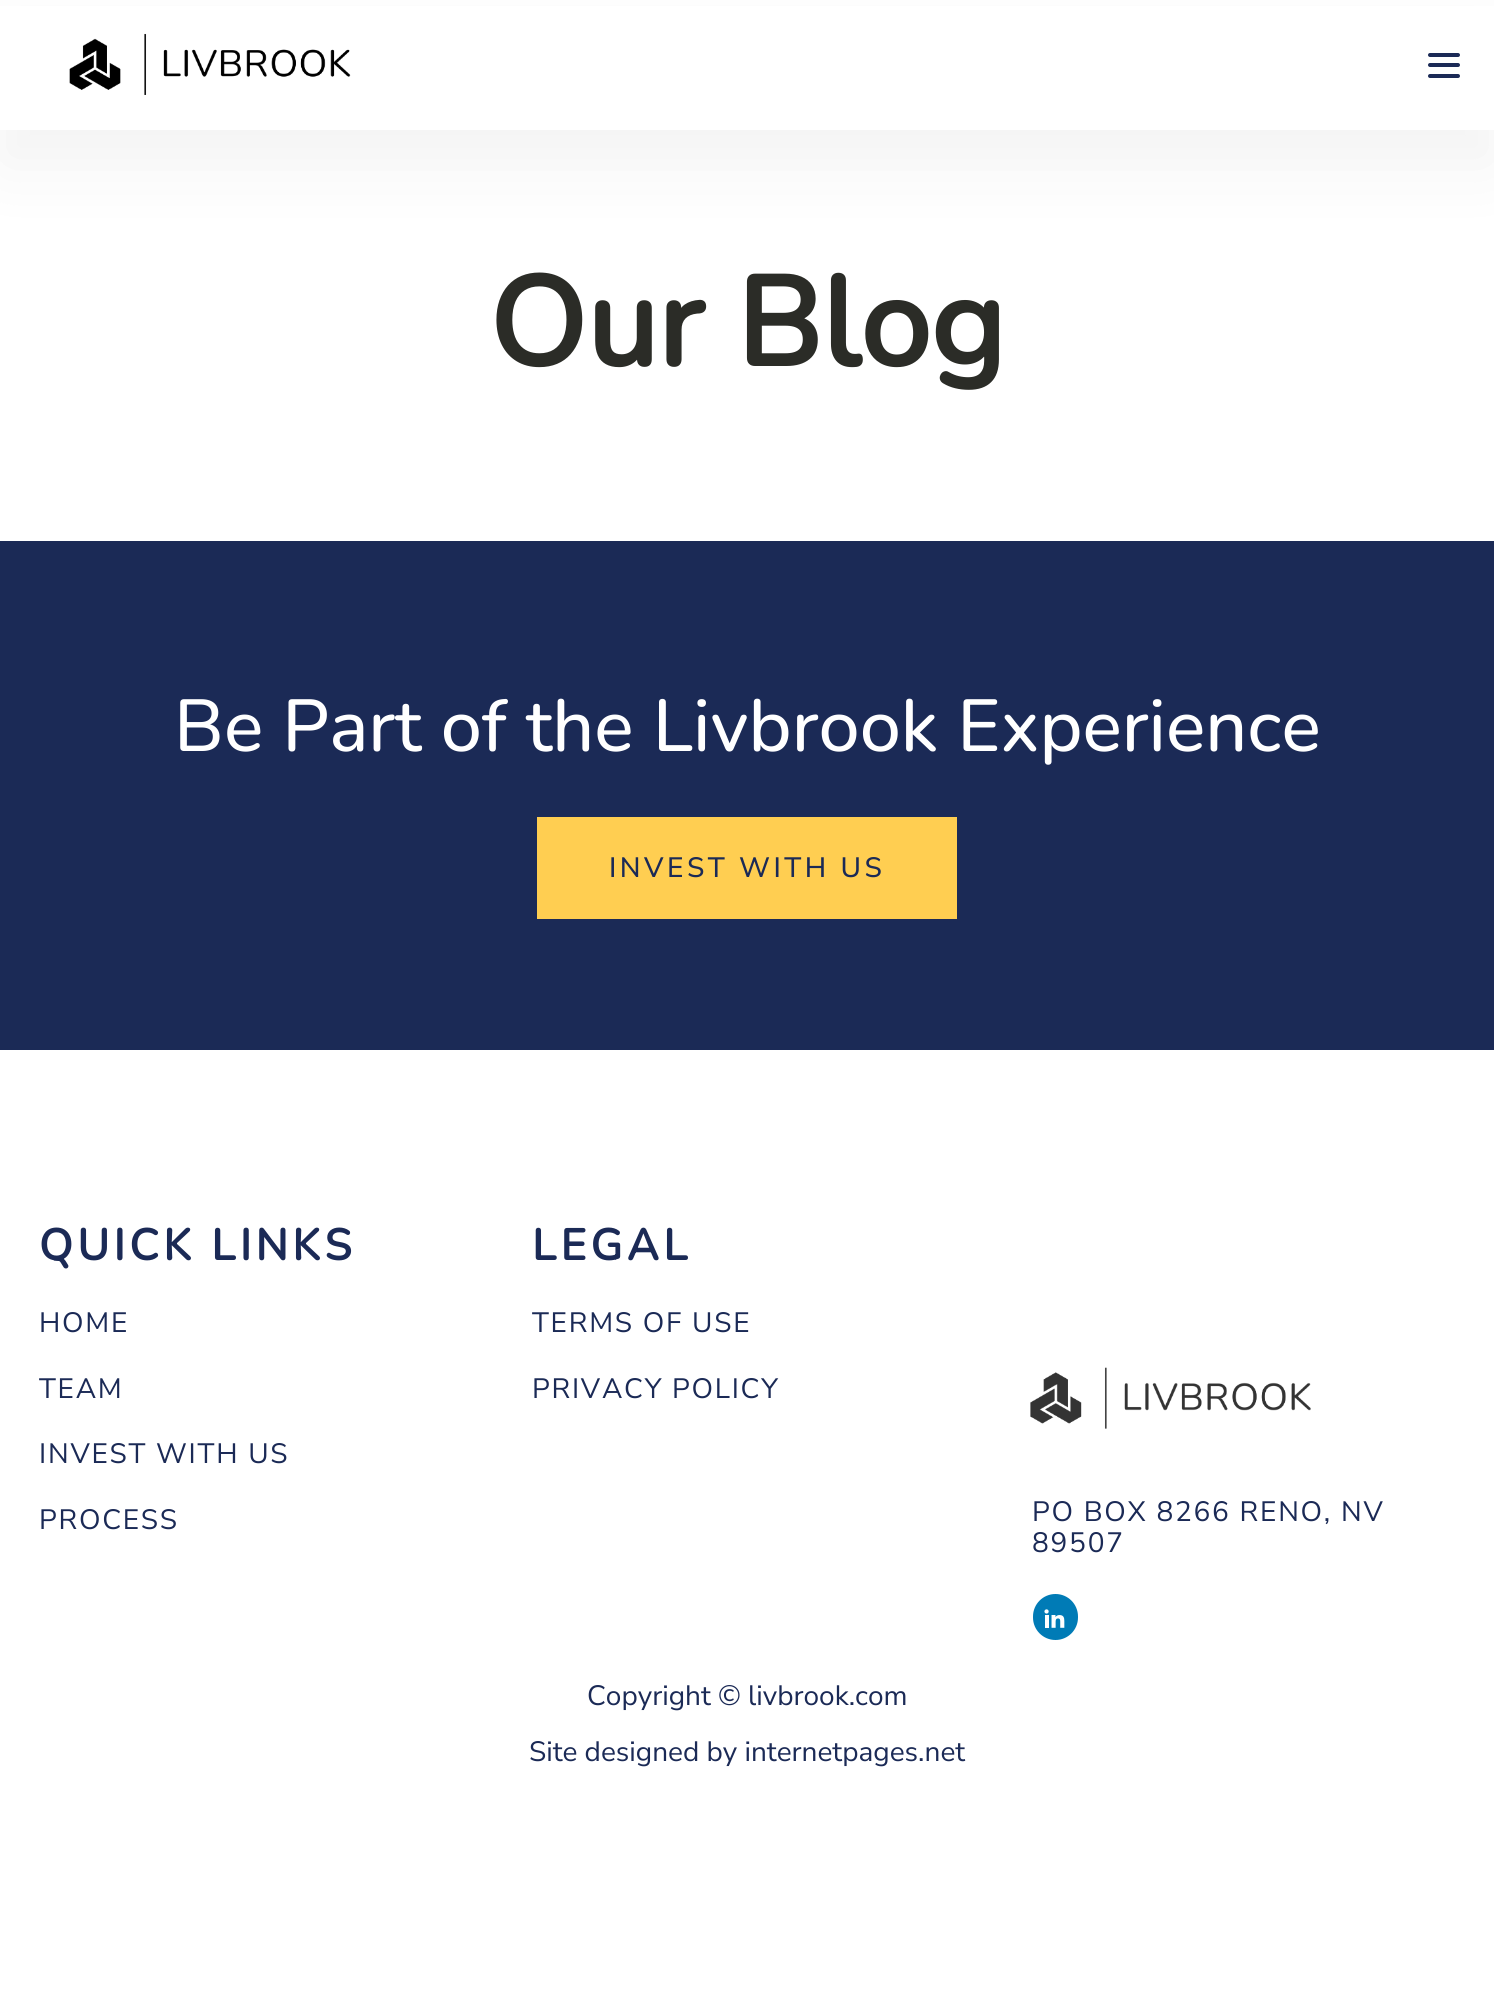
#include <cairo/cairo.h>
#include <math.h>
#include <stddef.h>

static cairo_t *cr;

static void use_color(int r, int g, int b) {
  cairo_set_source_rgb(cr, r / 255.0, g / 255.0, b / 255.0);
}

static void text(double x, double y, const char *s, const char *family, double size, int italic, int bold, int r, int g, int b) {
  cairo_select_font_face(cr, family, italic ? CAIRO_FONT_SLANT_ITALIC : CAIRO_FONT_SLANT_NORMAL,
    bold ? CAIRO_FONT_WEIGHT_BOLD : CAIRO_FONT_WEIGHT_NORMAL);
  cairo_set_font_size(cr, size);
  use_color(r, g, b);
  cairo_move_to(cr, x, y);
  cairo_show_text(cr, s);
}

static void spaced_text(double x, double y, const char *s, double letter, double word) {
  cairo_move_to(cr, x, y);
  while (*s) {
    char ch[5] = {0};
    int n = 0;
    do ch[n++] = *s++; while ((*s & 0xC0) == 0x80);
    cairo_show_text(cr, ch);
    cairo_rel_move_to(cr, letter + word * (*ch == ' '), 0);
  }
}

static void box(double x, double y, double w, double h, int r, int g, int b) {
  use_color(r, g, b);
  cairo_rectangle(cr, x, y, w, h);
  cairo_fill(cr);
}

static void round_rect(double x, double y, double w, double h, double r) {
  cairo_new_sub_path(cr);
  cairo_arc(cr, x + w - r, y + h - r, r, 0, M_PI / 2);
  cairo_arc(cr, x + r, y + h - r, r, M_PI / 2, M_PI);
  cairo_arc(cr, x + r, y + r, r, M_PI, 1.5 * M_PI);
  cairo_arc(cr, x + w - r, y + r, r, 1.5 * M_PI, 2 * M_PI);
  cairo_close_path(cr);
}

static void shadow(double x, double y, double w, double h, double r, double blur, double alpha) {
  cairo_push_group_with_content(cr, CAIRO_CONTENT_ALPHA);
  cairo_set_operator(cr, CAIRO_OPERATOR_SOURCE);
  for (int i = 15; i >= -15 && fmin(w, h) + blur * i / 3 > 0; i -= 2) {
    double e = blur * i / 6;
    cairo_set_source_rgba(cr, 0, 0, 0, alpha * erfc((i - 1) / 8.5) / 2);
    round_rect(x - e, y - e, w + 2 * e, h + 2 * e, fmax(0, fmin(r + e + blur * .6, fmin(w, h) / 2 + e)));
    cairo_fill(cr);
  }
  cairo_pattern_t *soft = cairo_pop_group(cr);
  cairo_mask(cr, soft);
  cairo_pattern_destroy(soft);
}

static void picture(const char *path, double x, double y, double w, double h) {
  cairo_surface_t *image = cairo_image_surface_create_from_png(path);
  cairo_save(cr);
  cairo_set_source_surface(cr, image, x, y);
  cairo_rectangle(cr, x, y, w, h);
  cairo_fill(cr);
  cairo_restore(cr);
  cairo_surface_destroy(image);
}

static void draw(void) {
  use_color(255, 255, 255);
  cairo_paint(cr);
  use_color(0, 0, 0);
  shadow(0, 35, 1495, 130, 0, 35, 0.05);
  box(0, 6, 1494, 124, 255, 255, 255);
  picture("img_01.png", 69, 33, 282, 62);
  use_color(27, 42, 86);
  round_rect(1428, 53, 32, 4, 2);
  cairo_fill(cr);
  round_rect(1428, 63, 32, 4, 2);
  cairo_fill(cr);
  round_rect(1428, 74, 32, 4, 2);
  cairo_fill(cr);
  box(0, 541, 1494, 509, 27, 42, 86);
  box(537, 817, 420, 102, 255, 206, 81);
  picture("img_02.png", 1030, 1367, 281, 62);
  use_color(0, 123, 182);
  round_rect(1033, 1594, 45, 46, 22.5);
  cairo_fill(cr);
  picture("img_03.png", 1044, 1609, 21, 19);
  text(489, 366, "Our Blog", "Nunito", 126, 0, 1, 43, 44, 39);
  text(174, 751, "Be Part of the Livbrook Experience", "Nunito ExtraLight", 73.5, 0, 0, 255, 255, 255);
  cairo_select_font_face(cr, "Nunito Sans Medium", CAIRO_FONT_SLANT_NORMAL, CAIRO_FONT_WEIGHT_NORMAL);
  cairo_set_font_size(cr, 28);
  use_color(27, 42, 86);
  spaced_text(609, 877, "INVEST WITH US", 3.5, 0);
  cairo_select_font_face(cr, "Nunito", CAIRO_FONT_SLANT_NORMAL, CAIRO_FONT_WEIGHT_BOLD);
  cairo_set_font_size(cr, 43.75);
  spaced_text(39, 1260, "QUICK LINKS", 4.4, 0);
  cairo_select_font_face(cr, "Nunito Sans", CAIRO_FONT_SLANT_NORMAL, CAIRO_FONT_WEIGHT_NORMAL);
  cairo_set_font_size(cr, 28);
  spaced_text(39, 1332, "HOME", 1.75, 0);
  spaced_text(39, 1398, "TEAM", 1.75, 0);
  spaced_text(39, 1463, "INVEST WITH US", 1.75, 0);
  spaced_text(39, 1529, "PROCESS", 1.75, 0);
  cairo_select_font_face(cr, "Nunito", CAIRO_FONT_SLANT_NORMAL, CAIRO_FONT_WEIGHT_BOLD);
  cairo_set_font_size(cr, 43.75);
  spaced_text(532, 1260, "LEGAL", 4.4, 0);
  cairo_select_font_face(cr, "Nunito Sans", CAIRO_FONT_SLANT_NORMAL, CAIRO_FONT_WEIGHT_NORMAL);
  cairo_set_font_size(cr, 28);
  spaced_text(532, 1332, "TERMS OF USE", 1.75, 0);
  spaced_text(532, 1398, "PRIVACY POLICY", 1.75, 0);
  spaced_text(1032, 1521, "PO BOX 8266 RENO, NV", 1.75, 0);
  spaced_text(1032, 1552, "89507", 1.75, 0);
  text(587, 1705, "Copyright © livbrook.com", "Nunito Sans", 28, 0, 0, 27, 42, 86);
  text(529, 1761, "Site designed by internetpages.net", "Nunito Sans", 28, 0, 0, 27, 42, 86);
}

int main(void) {
  cairo_surface_t *surface = cairo_image_surface_create(CAIRO_FORMAT_RGB24, 1494, 2004);
  cr = cairo_create(surface);
  cairo_font_options_t *options = cairo_font_options_create();
  cairo_font_options_set_hint_metrics(options, CAIRO_HINT_METRICS_OFF);
  cairo_font_options_set_hint_style(options, CAIRO_HINT_STYLE_NONE);
  cairo_set_font_options(cr, options);
  cairo_set_miter_limit(cr, 4);
  draw();
  cairo_surface_write_to_png(surface, "out.png");
  cairo_font_options_destroy(options);
  cairo_destroy(cr);
  cairo_surface_destroy(surface);
  return 0;
}
